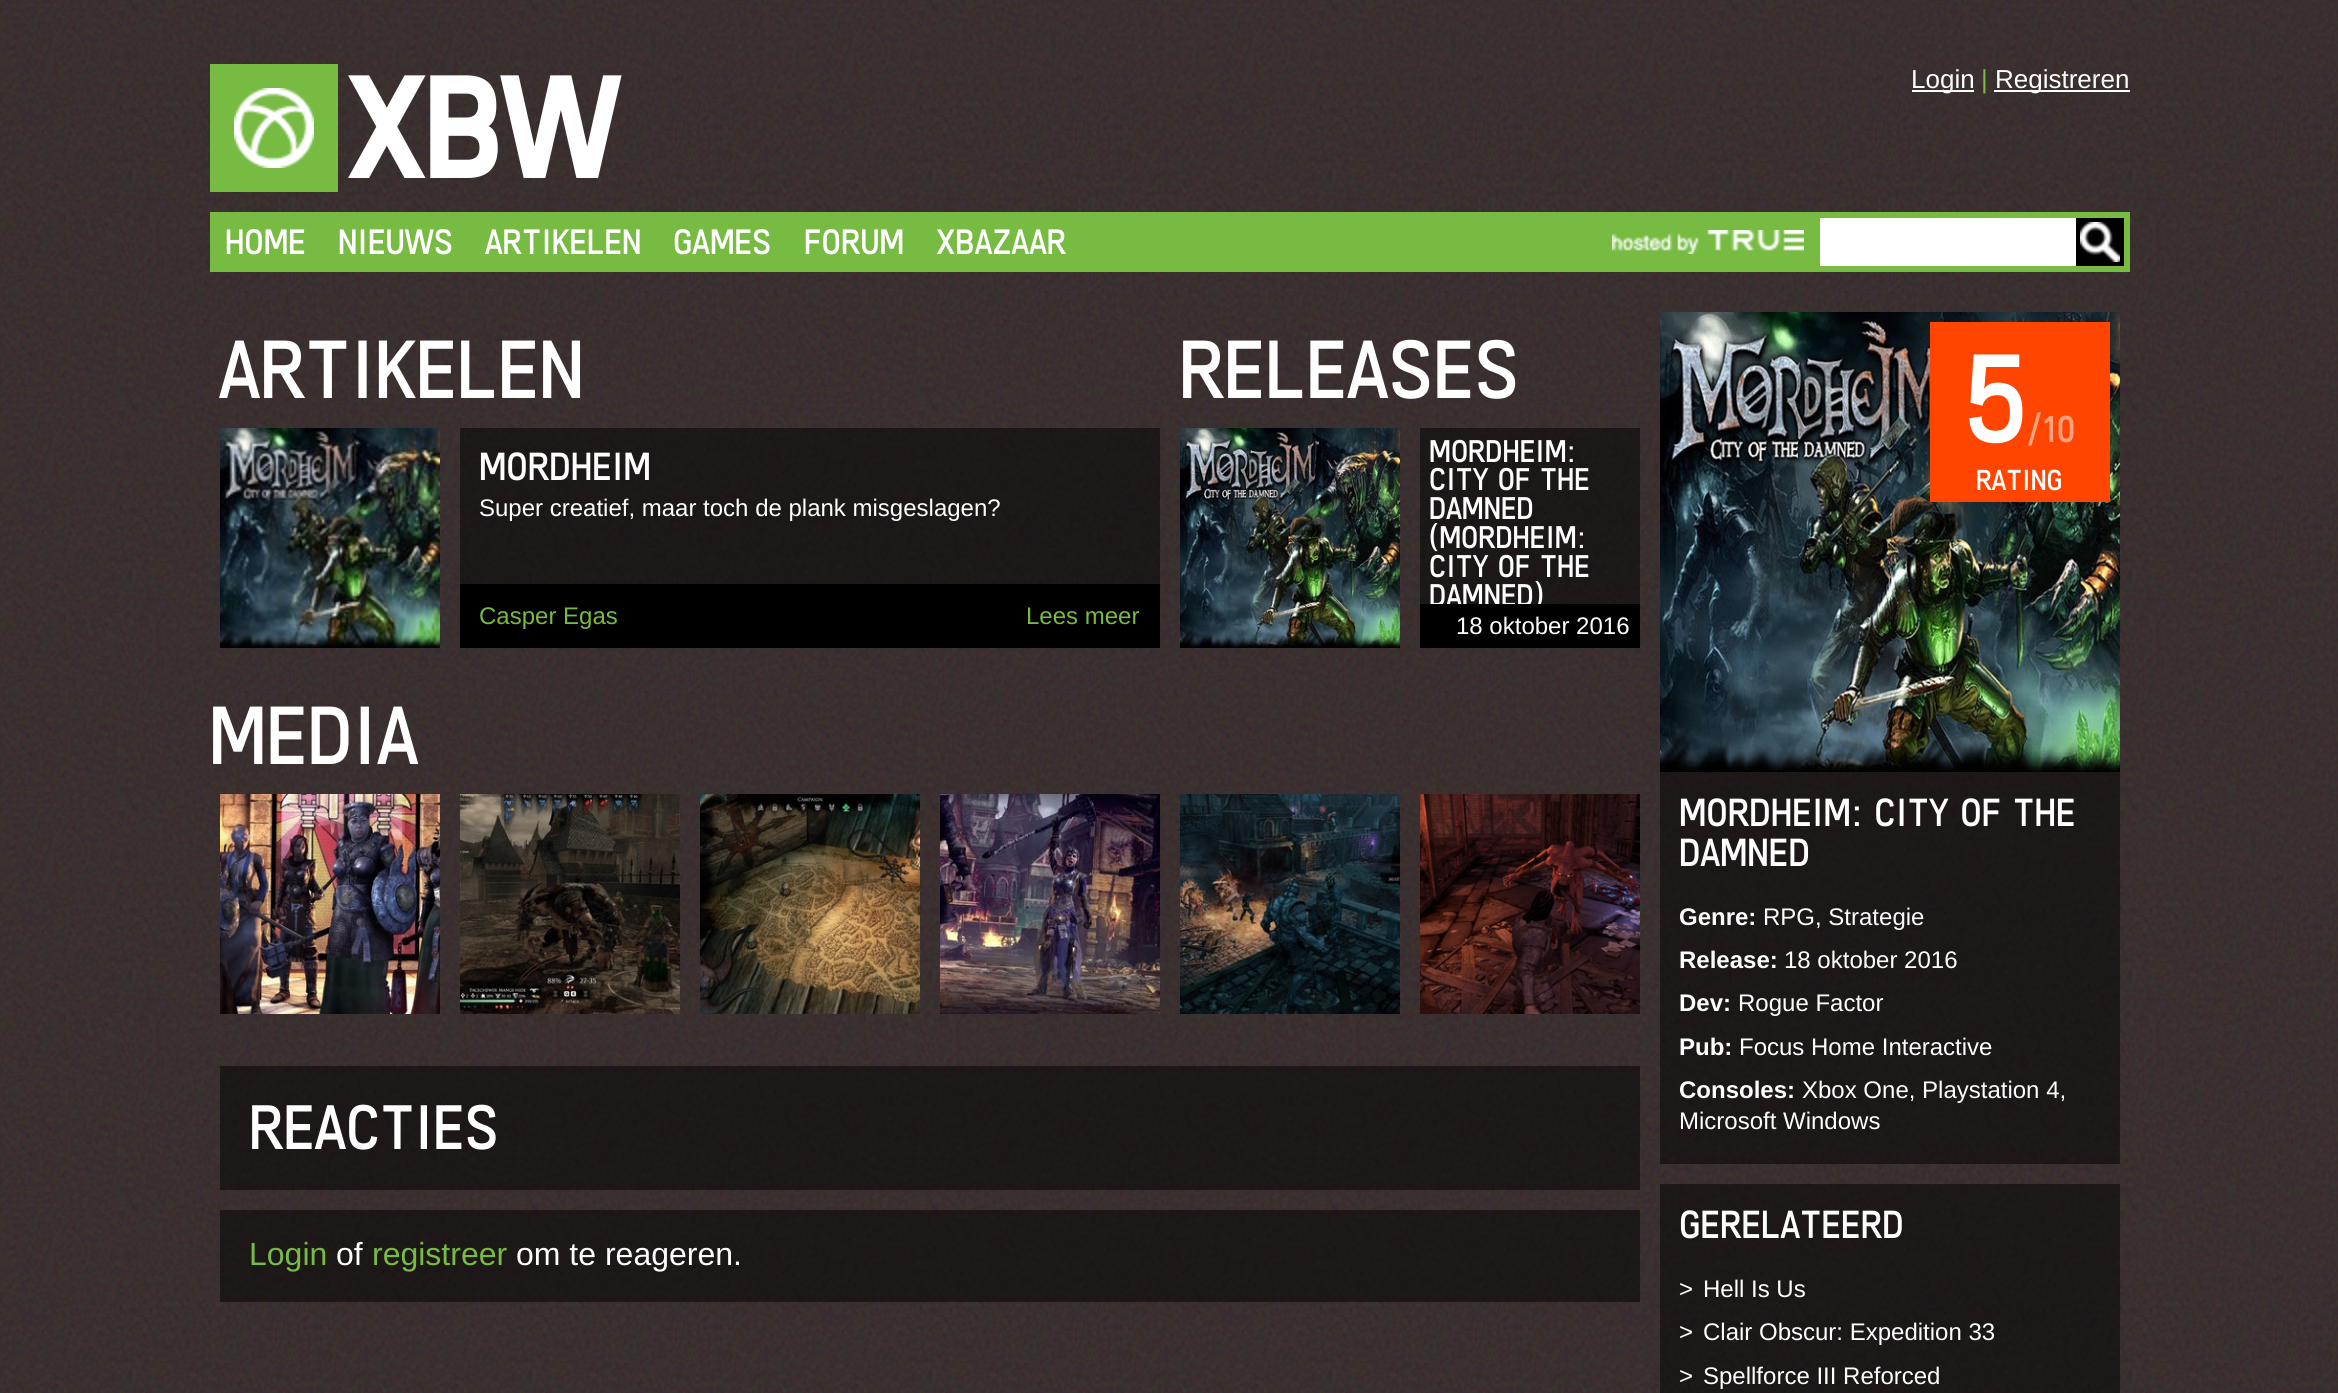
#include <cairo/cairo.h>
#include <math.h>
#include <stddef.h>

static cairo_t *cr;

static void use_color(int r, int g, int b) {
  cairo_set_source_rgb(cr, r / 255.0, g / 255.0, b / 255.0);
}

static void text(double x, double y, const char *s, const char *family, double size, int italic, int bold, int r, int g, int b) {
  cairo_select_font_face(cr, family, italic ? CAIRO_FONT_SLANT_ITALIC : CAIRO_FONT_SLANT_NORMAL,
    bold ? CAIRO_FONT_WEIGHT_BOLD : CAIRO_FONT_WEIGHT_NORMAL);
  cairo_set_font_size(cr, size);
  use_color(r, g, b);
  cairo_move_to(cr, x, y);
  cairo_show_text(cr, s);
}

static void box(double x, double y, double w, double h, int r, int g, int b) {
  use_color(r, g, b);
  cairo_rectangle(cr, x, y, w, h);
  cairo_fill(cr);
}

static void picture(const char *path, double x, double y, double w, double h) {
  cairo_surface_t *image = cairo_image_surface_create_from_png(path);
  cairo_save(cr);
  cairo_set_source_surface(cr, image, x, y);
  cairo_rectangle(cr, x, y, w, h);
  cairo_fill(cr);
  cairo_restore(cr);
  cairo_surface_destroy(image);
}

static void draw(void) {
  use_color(255, 255, 255);
  cairo_paint(cr);
  picture("img_01.png", 0, 0, 2338, 1393);
  box(210, 64, 128, 128, 119, 187, 67);
  picture("img_02.png", 234, 88, 80, 80);
  box(1912, 90, 62, 2, 255, 255, 255);
  box(1994, 90, 136, 2, 255, 255, 255);
  box(210, 212, 1920, 60, 119, 187, 67);
  picture("img_03.png", 1612, 230, 192, 24);
  box(1820, 218, 256, 48, 255, 255, 255);
  box(2076, 218, 48, 48, 0, 0, 0);
  picture("img_04.png", 2080, 222, 40, 40);
  picture("img_05.png", 220, 428, 220, 220);
  cairo_set_source_rgba(cr, 0, 0, 0, 0.5);
  cairo_rectangle(cr, 460, 428, 700, 156);
  cairo_fill(cr);
  box(460, 584, 700, 64, 0, 0, 0);
  picture("img_06.png", 1180, 428, 220, 220);
  cairo_set_source_rgba(cr, 0, 0, 0, 0.5);
  cairo_rectangle(cr, 1420, 428, 220, 176);
  cairo_fill(cr);
  picture("img_07.png", 220, 794, 220, 220);
  picture("img_08.png", 460, 794, 220, 220);
  picture("img_09.png", 700, 794, 220, 220);
  picture("img_10.png", 940, 794, 220, 220);
  picture("img_11.png", 1180, 794, 220, 220);
  picture("img_12.png", 1420, 794, 220, 220);
  cairo_rectangle(cr, 220, 1066, 1420, 124);
  cairo_fill(cr);
  cairo_rectangle(cr, 220, 1210, 1420, 92);
  cairo_fill(cr);
  cairo_rectangle(cr, 1660, 772, 460, 392);
  cairo_fill(cr);
  picture("img_13.png", 1660, 312, 460, 460);
  box(1930, 322, 180, 180, 255, 69, 0);
  cairo_set_source_rgba(cr, 0, 0, 0, 0.5);
  cairo_rectangle(cr, 1660, 1184, 460, 209);
  cairo_fill(cr);
  text(346, 178, "XBW", "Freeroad", 144, 0, 1, 255, 255, 255);
  text(1911, 88, "Login", "Liberation Sans", 26, 0, 0, 255, 255, 255);
  text(1981, 88, "|", "Liberation Sans", 26, 0, 0, 119, 187, 67);
  text(1995, 88, "Registreren", "Liberation Sans", 26, 0, 0, 255, 255, 255);
  text(225, 254, "HOME", "Freeroad", 36, 0, 0, 255, 255, 255);
  text(338, 254, "NIEUWS", "Freeroad", 36, 0, 0, 255, 255, 255);
  text(485, 254, "ARTIKELEN", "Freeroad", 36, 0, 0, 255, 255, 255);
  text(673, 254, "GAMES", "Freeroad", 36, 0, 0, 255, 255, 255);
  text(804, 254, "FORUM", "Freeroad", 36, 0, 0, 255, 255, 255);
  text(936, 254, "XBAZAAR", "Freeroad", 36, 0, 0, 255, 255, 255);
  text(219, 398, "ARTIKELEN", "Freeroad", 84, 0, 0, 255, 255, 255);
  text(479, 480, "MORDHEIM", "Freeroad", 40, 0, 0, 255, 255, 255);
  text(479, 516, "Super creatief, maar toch de plank misgeslagen?", "Liberation Sans", 24, 0, 0, 255, 255, 255);
  text(479, 624, "Casper Egas", "Liberation Sans", 24, 0, 0, 119, 187, 67);
  text(1026, 624, "Lees meer", "Liberation Sans", 24, 0, 0, 119, 187, 67);
  text(1179, 398, "RELEASES", "Freeroad", 84, 0, 0, 255, 255, 255);
  text(1429, 462, "MORDHEIM:", "Freeroad", 32, 0, 0, 255, 255, 255);
  text(1429, 490, "CITY OF THE", "Freeroad", 32, 0, 0, 255, 255, 255);
  text(1429, 519, "DAMNED", "Freeroad", 32, 0, 0, 255, 255, 255);
  text(1429, 548, "(MORDHEIM:", "Freeroad", 32, 0, 0, 255, 255, 255);
  text(1429, 577, "CITY OF THE", "Freeroad", 32, 0, 0, 255, 255, 255);
  text(1429, 606, "DAMNED)", "Freeroad", 32, 0, 0, 255, 255, 255);
  box(1420, 604, 220, 44, 0, 0, 0);
  text(1456, 634, "18 oktober 2016", "Liberation Sans", 24, 0, 0, 255, 255, 255);
  text(209, 764, "MEDIA", "Freeroad", 84, 0, 0, 255, 255, 255);
  text(249, 1149, "REACTIES", "Freeroad", 64, 0, 0, 255, 255, 255);
  text(249, 1265, "Login", "Liberation Sans", 32, 0, 0, 119, 187, 67);
  text(336, 1265, "of", "Liberation Sans", 32, 0, 0, 255, 255, 255);
  text(372, 1265, "registreer", "Liberation Sans", 32, 0, 0, 119, 187, 67);
  text(516, 1265, "om te reageren.", "Liberation Sans", 32, 0, 0, 255, 255, 255);
  text(1963, 442, "5", "Freeroad", 128, 0, 0, 255, 255, 255);
  text(2028, 442, "/10", "Freeroad", 38, 0, 0, 255, 162, 128);
  text(1976, 490, "RATING", "Freeroad", 29.5, 0, 0, 255, 255, 255);
  text(1679, 826, "MORDHEIM: CITY OF THE", "Freeroad", 40, 0, 0, 255, 255, 255);
  text(1679, 866, "DAMNED", "Freeroad", 40, 0, 0, 255, 255, 255);
  text(1679, 925, "Genre:", "Liberation Sans", 24, 0, 1, 255, 255, 255);
  text(1763, 925, "RPG, Strategie", "Liberation Sans", 24, 0, 0, 255, 255, 255);
  text(1679, 968, "Release:", "Liberation Sans", 24, 0, 1, 255, 255, 255);
  text(1784, 968, "18 oktober 2016", "Liberation Sans", 24, 0, 0, 255, 255, 255);
  text(1679, 1011, "Dev:", "Liberation Sans", 24, 0, 1, 255, 255, 255);
  text(1738, 1011, "Rogue Factor", "Liberation Sans", 24, 0, 0, 255, 255, 255);
  text(1679, 1055, "Pub:", "Liberation Sans", 24, 0, 1, 255, 255, 255);
  text(1739, 1055, "Focus Home Interactive", "Liberation Sans", 24, 0, 0, 255, 255, 255);
  text(1679, 1098, "Consoles:", "Liberation Sans", 24, 0, 1, 255, 255, 255);
  text(1802, 1098, "Xbox One, Playstation 4,", "Liberation Sans", 24, 0, 0, 255, 255, 255);
  text(1679, 1129, "Microsoft Windows", "Liberation Sans", 24, 0, 0, 255, 255, 255);
  text(1679, 1238, "GERELATEERD", "Freeroad", 40, 0, 0, 255, 255, 255);
  text(1679, 1297, ">", "Liberation Sans", 24, 0, 0, 255, 255, 255);
  text(1703, 1297, "Hell Is Us", "Liberation Sans", 24, 0, 0, 255, 255, 255);
  text(1679, 1340, ">", "Liberation Sans", 24, 0, 0, 255, 255, 255);
  text(1703, 1340, "Clair Obscur: Expedition 33", "Liberation Sans", 24, 0, 0, 255, 255, 255);
  text(1679, 1384, ">", "Liberation Sans", 24, 0, 0, 255, 255, 255);
  text(1703, 1384, "Spellforce III Reforced", "Liberation Sans", 24, 0, 0, 255, 255, 255);
}

int main(void) {
  cairo_surface_t *surface = cairo_image_surface_create(CAIRO_FORMAT_RGB24, 2338, 1393);
  cr = cairo_create(surface);
  cairo_font_options_t *options = cairo_font_options_create();
  cairo_font_options_set_hint_metrics(options, CAIRO_HINT_METRICS_OFF);
  cairo_font_options_set_hint_style(options, CAIRO_HINT_STYLE_NONE);
  cairo_set_font_options(cr, options);
  cairo_set_miter_limit(cr, 4);
  draw();
  cairo_surface_write_to_png(surface, "out.png");
  cairo_font_options_destroy(options);
  cairo_destroy(cr);
  cairo_surface_destroy(surface);
  return 0;
}
